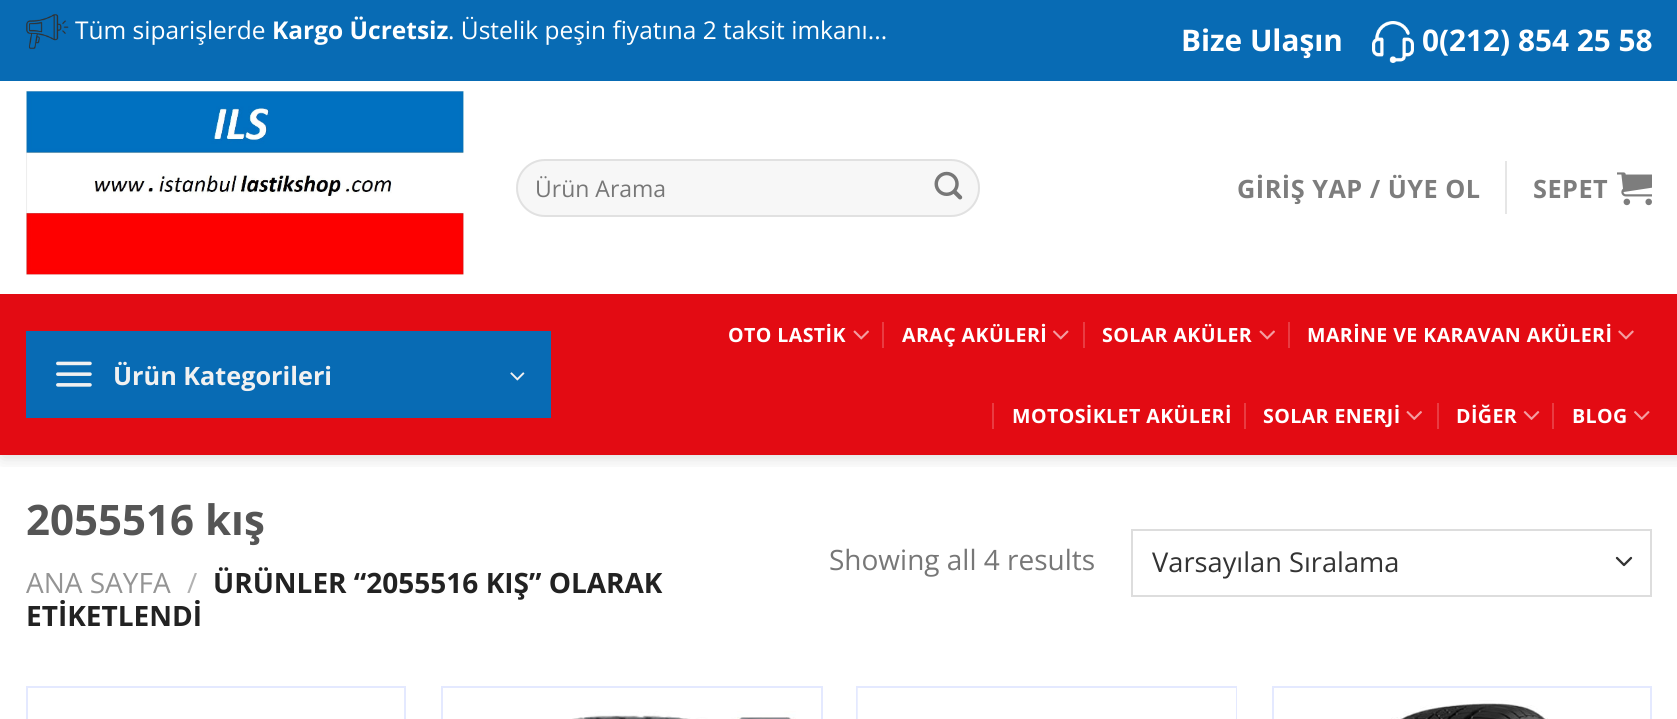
#include <cairo/cairo.h>
#include <math.h>
#include <stddef.h>

static cairo_t *cr;

static void use_color(int r, int g, int b) {
  cairo_set_source_rgb(cr, r / 255.0, g / 255.0, b / 255.0);
}

static void text(double x, double y, const char *s, const char *family, double size, int italic, int bold, int r, int g, int b) {
  cairo_select_font_face(cr, family, italic ? CAIRO_FONT_SLANT_ITALIC : CAIRO_FONT_SLANT_NORMAL,
    bold ? CAIRO_FONT_WEIGHT_BOLD : CAIRO_FONT_WEIGHT_NORMAL);
  cairo_set_font_size(cr, size);
  use_color(r, g, b);
  cairo_move_to(cr, x, y);
  cairo_show_text(cr, s);
}

static void spaced_text(double x, double y, const char *s, double letter, double word) {
  cairo_move_to(cr, x, y);
  while (*s) {
    char ch[5] = {0};
    int n = 0;
    do ch[n++] = *s++; while ((*s & 0xC0) == 0x80);
    cairo_show_text(cr, ch);
    cairo_rel_move_to(cr, letter + word * (*ch == ' '), 0);
  }
}

static void box(double x, double y, double w, double h, int r, int g, int b) {
  use_color(r, g, b);
  cairo_rectangle(cr, x, y, w, h);
  cairo_fill(cr);
}

static void round_rect(double x, double y, double w, double h, double r) {
  cairo_new_sub_path(cr);
  cairo_arc(cr, x + w - r, y + h - r, r, 0, M_PI / 2);
  cairo_arc(cr, x + r, y + h - r, r, M_PI / 2, M_PI);
  cairo_arc(cr, x + r, y + r, r, M_PI, 1.5 * M_PI);
  cairo_arc(cr, x + w - r, y + r, r, 1.5 * M_PI, 2 * M_PI);
  cairo_close_path(cr);
}

static void shadow(double x, double y, double w, double h, double r, double blur, double alpha) {
  cairo_push_group_with_content(cr, CAIRO_CONTENT_ALPHA);
  cairo_set_operator(cr, CAIRO_OPERATOR_SOURCE);
  for (int i = 15; i >= -15 && fmin(w, h) + blur * i / 3 > 0; i -= 2) {
    double e = blur * i / 6;
    cairo_set_source_rgba(cr, 0, 0, 0, alpha * erfc((i - 1) / 8.5) / 2);
    round_rect(x - e, y - e, w + 2 * e, h + 2 * e, fmax(0, fmin(r + e + blur * .6, fmin(w, h) / 2 + e)));
    cairo_fill(cr);
  }
  cairo_pattern_t *soft = cairo_pop_group(cr);
  cairo_mask(cr, soft);
  cairo_pattern_destroy(soft);
}

static void picture(const char *path, double x, double y, double w, double h) {
  cairo_surface_t *image = cairo_image_surface_create_from_png(path);
  cairo_save(cr);
  cairo_set_source_surface(cr, image, x, y);
  cairo_rectangle(cr, x, y, w, h);
  cairo_fill(cr);
  cairo_restore(cr);
  cairo_surface_destroy(image);
}

static void draw(void) {
  use_color(255, 255, 255);
  cairo_paint(cr);
  cairo_save(cr);
  cairo_rectangle(cr, 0, 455, 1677, 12);
  cairo_clip(cr);
  use_color(0, 0, 0);
  shadow(2, 2, 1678, 455, 0, 9, 0.15);
  cairo_restore(cr);
  box(0, 0, 1677, 81, 8, 107, 180);
  picture("img_01.png", 26, 14, 43, 36);
  picture("img_02.png", 1372, 21, 42, 42);
  picture("img_03.png", 26, 91, 438, 184);
  use_color(247, 247, 247);
  round_rect(516, 159, 464, 58, 29);
  cairo_fill(cr);
  round_rect(517, 160, 462, 56, 28);
  cairo_set_source_rgba(cr, 0, 0, 0, 0.09);
  cairo_stroke(cr);
  picture("img_04.png", 934, 171, 29, 29);
  box(1505, 161, 2, 53, 230, 230, 230);
  picture("img_05.png", 1617, 172, 35, 34);
  box(0, 294, 1677, 161, 227, 11, 19);
  box(26, 331, 525, 87, 8, 107, 180);
  picture("img_06.png", 56, 361, 36, 26);
  picture("img_07.png", 510, 372, 15, 9);
  picture("img_08.png", 853, 330, 16, 10);
  box(882, 322, 2, 26, 233, 60, 66);
  picture("img_09.png", 1053, 330, 16, 10);
  box(1083, 322, 2, 26, 233, 60, 66);
  picture("img_08.png", 1259, 330, 16, 10);
  box(1288, 322, 2, 26, 233, 60, 66);
  picture("img_10.png", 1618, 330, 16, 10);
  box(992, 403, 2, 26, 233, 60, 66);
  box(1244, 403, 2, 26, 233, 60, 66);
  picture("img_11.png", 1406, 411, 16, 9);
  box(1437, 403, 2, 26, 233, 60, 66);
  picture("img_12.png", 1523, 411, 17, 9);
  box(1552, 403, 2, 26, 233, 60, 66);
  picture("img_13.png", 1634, 411, 16, 9);
  cairo_new_path(cr);
  cairo_move_to(cr, 1617, 558);
  cairo_line_to(cr, 1624, 565);
  cairo_line_to(cr, 1631, 558);
  use_color(51, 51, 51);
  cairo_set_line_width(cr, 2.3);
  cairo_set_line_cap(cr, CAIRO_LINE_CAP_ROUND);
  cairo_set_line_join(cr, CAIRO_LINE_JOIN_ROUND);
  cairo_stroke(cr);
  cairo_rectangle(cr, 1132, 530, 519, 66);
  use_color(221, 221, 221);
  cairo_set_line_width(cr, 2);
  cairo_set_line_cap(cr, CAIRO_LINE_CAP_BUTT);
  cairo_set_line_join(cr, CAIRO_LINE_JOIN_MITER);
  cairo_stroke(cr);
  cairo_rectangle(cr, 27, 687, 378, 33);
  use_color(228, 233, 255);
  cairo_stroke(cr);
  cairo_rectangle(cr, 442, 687, 380, 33);
  cairo_stroke(cr);
  picture("img_14.png", 572, 711, 224, 8);
  cairo_rectangle(cr, 857, 687, 379, 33);
  cairo_stroke(cr);
  box(1235, 688, 1, 31, 255, 255, 255);
  box(857, 688, 1, 31, 235, 239, 255);
  cairo_rectangle(cr, 1273, 687, 378, 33);
  use_color(228, 233, 255);
  cairo_stroke(cr);
  picture("img_15.png", 1391, 700, 157, 19);
  text(75, 39, "Tüm siparişlerde", "Open Sans", 24.5, 0, 0, 255, 255, 255);
  text(272, 39, "Kargo Ücretsiz", "Open Sans", 24.5, 0, 1, 255, 255, 255);
  text(448, 39, ". Üstelik peşin fiyatına 2 taksit imkanı...", "Open Sans", 24.5, 0, 0, 255, 255, 255);
  text(1181, 51, "Bize Ulaşın", "Open Sans", 29.75, 0, 1, 255, 255, 255);
  text(1422, 51, "0(212) 854 25 58", "Open Sans", 29.75, 0, 1, 255, 255, 255);
  text(535, 197, "Ürün Arama", "Open Sans", 23, 0, 0, 119, 119, 119);
  cairo_select_font_face(cr, "Open Sans", CAIRO_FONT_SLANT_NORMAL, CAIRO_FONT_WEIGHT_BOLD);
  cairo_set_font_size(cr, 25.25);
  use_color(125, 125, 125);
  spaced_text(1237, 198, "GİRİŞ YAP / ÜYE OL", 0.5, 0);
  spaced_text(1533, 198, "SEPET", 0.5, 0);
  text(113, 385, "Ürün Kategorileri", "Open Sans", 25.25, 0, 1, 241, 241, 241);
  cairo_set_font_size(cr, 19.6);
  use_color(255, 255, 255);
  spaced_text(728, 342, "OTO LASTİK", 0.4, 0);
  spaced_text(902, 342, "ARAÇ AKÜLERİ", 0.4, 0);
  spaced_text(1102, 342, "SOLAR AKÜLER", 0.4, 0);
  spaced_text(1307, 342, "MARİNE VE KARAVAN AKÜLERİ", 0.4, 0);
  spaced_text(1012, 423, "MOTOSİKLET AKÜLERİ", 0.4, 0);
  spaced_text(1263, 423, "SOLAR ENERJİ", 0.4, 0);
  spaced_text(1456, 423, "DİĞER", 0.4, 0);
  spaced_text(1572, 423, "BLOG", 0.4, 0);
  text(26, 535, "2055516 kış", "Open Sans", 42, 0, 1, 85, 85, 85);
  text(26, 593, "ANA SAYFA", "Open Sans", 28, 0, 0, 148, 148, 148);
  text(187, 593, "/", "Open Sans", 28, 0, 0, 178, 178, 178);
  text(213, 593, "ÜRÜNLER “2055516 KIŞ” OLARAK", "Open Sans", 28, 0, 1, 34, 34, 34);
  text(26, 626, "ETİKETLENDİ", "Open Sans", 28, 0, 1, 34, 34, 34);
  text(829, 570, "Showing all 4 results", "Open Sans", 28, 0, 0, 119, 119, 119);
  text(1152, 572, "Varsayılan Sıralama", "Open Sans", 27.25, 0, 0, 51, 51, 51);
}

int main(void) {
  cairo_surface_t *surface = cairo_image_surface_create(CAIRO_FORMAT_RGB24, 1677, 719);
  cr = cairo_create(surface);
  cairo_font_options_t *options = cairo_font_options_create();
  cairo_font_options_set_hint_metrics(options, CAIRO_HINT_METRICS_OFF);
  cairo_font_options_set_hint_style(options, CAIRO_HINT_STYLE_NONE);
  cairo_set_font_options(cr, options);
  cairo_set_miter_limit(cr, 4);
  draw();
  cairo_surface_write_to_png(surface, "out.png");
  cairo_font_options_destroy(options);
  cairo_destroy(cr);
  cairo_surface_destroy(surface);
  return 0;
}
